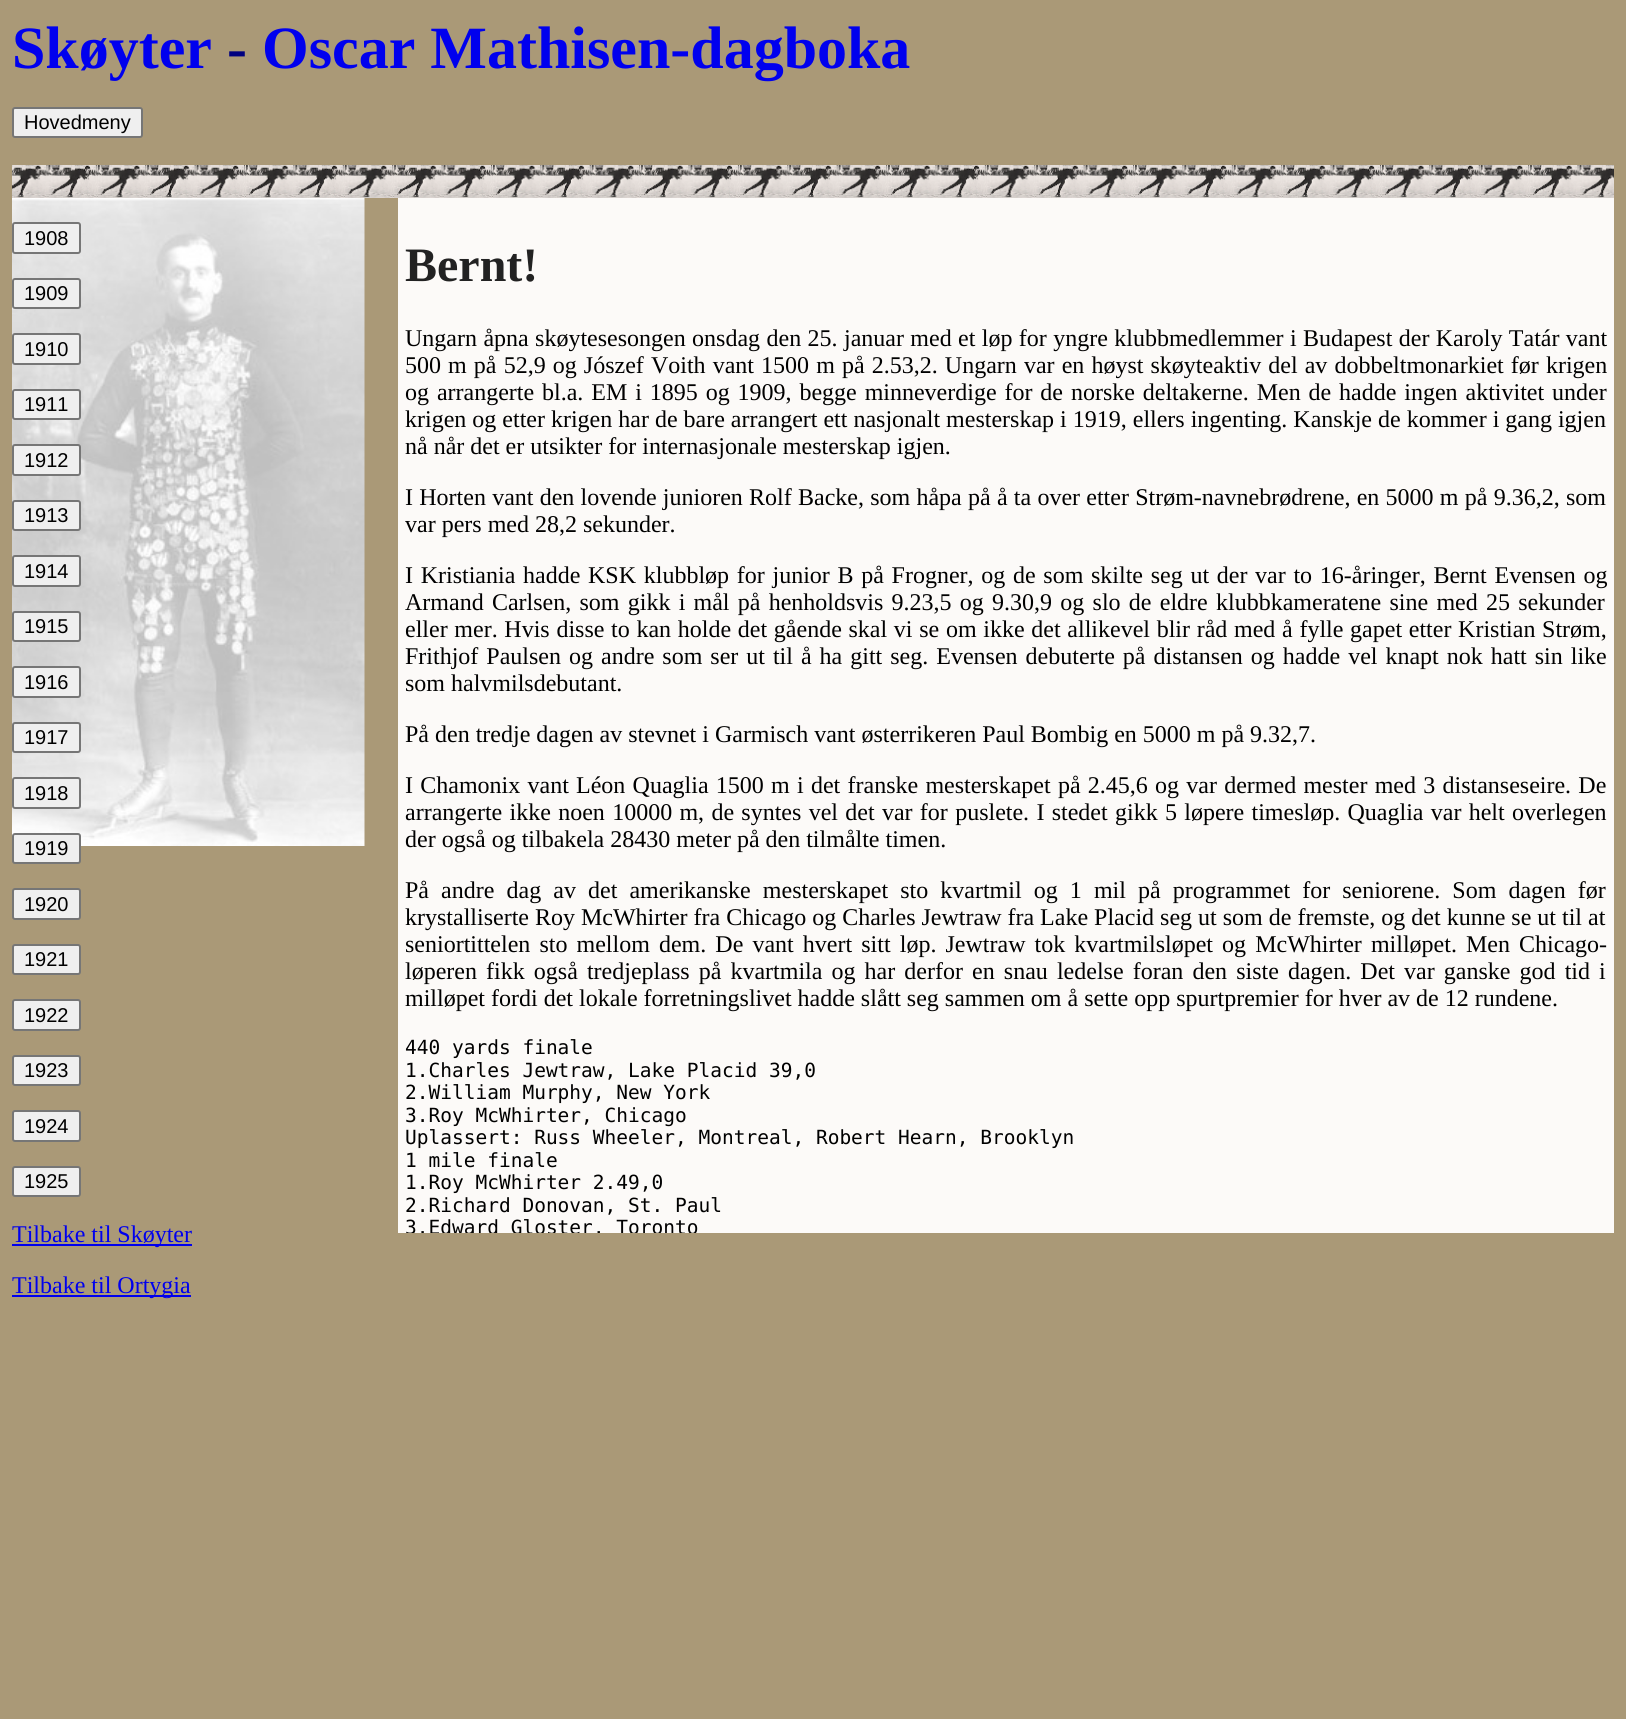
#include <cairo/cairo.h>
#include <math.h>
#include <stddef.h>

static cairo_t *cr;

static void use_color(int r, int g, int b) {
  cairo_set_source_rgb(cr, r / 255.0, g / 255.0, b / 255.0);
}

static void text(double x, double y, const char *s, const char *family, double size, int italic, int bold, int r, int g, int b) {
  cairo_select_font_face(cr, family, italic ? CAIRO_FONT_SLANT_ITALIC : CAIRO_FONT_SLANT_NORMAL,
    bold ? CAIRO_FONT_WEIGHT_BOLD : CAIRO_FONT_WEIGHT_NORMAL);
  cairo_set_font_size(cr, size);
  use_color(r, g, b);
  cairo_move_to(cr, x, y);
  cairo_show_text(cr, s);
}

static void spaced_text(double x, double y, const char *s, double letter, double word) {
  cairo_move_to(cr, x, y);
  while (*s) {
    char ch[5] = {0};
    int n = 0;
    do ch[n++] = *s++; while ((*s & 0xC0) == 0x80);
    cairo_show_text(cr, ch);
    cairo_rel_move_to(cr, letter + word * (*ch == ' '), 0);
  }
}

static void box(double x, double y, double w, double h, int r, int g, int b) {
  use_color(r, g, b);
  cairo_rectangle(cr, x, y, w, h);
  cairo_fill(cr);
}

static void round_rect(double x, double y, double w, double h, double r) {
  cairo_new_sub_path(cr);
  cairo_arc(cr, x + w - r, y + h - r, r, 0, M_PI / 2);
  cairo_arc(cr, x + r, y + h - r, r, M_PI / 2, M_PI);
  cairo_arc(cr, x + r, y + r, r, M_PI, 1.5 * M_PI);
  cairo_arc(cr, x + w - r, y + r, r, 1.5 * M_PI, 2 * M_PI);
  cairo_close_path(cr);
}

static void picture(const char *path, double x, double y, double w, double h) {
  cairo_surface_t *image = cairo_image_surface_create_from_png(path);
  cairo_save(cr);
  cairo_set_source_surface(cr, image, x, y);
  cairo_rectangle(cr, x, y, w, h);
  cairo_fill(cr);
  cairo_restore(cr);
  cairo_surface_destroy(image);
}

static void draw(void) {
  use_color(170, 153, 119);
  cairo_paint(cr);
  picture("img_01.png", 12, 165, 1602, 33);
  use_color(239, 239, 239);
  round_rect(13, 108, 129, 29, 2);
  cairo_fill_preserve(cr);
  use_color(118, 118, 118);
  cairo_stroke(cr);
  picture("img_02.png", 12, 198, 353, 648);
  use_color(239, 239, 239);
  round_rect(13, 223, 67, 30, 2);
  cairo_fill_preserve(cr);
  use_color(118, 118, 118);
  cairo_stroke(cr);
  use_color(239, 239, 239);
  round_rect(13, 279, 67, 29, 2);
  cairo_fill_preserve(cr);
  use_color(118, 118, 118);
  cairo_stroke(cr);
  use_color(239, 239, 239);
  round_rect(13, 334, 67, 30, 2);
  cairo_fill_preserve(cr);
  use_color(118, 118, 118);
  cairo_stroke(cr);
  use_color(239, 239, 239);
  round_rect(13, 390, 67, 29, 2);
  cairo_fill_preserve(cr);
  use_color(118, 118, 118);
  cairo_stroke(cr);
  use_color(239, 239, 239);
  round_rect(13, 445, 67, 30, 2);
  cairo_fill_preserve(cr);
  use_color(118, 118, 118);
  cairo_stroke(cr);
  use_color(239, 239, 239);
  round_rect(13, 501, 67, 29, 2);
  cairo_fill_preserve(cr);
  use_color(118, 118, 118);
  cairo_stroke(cr);
  use_color(239, 239, 239);
  round_rect(13, 556, 67, 30, 2);
  cairo_fill_preserve(cr);
  use_color(118, 118, 118);
  cairo_stroke(cr);
  use_color(239, 239, 239);
  round_rect(13, 612, 67, 29, 2);
  cairo_fill_preserve(cr);
  use_color(118, 118, 118);
  cairo_stroke(cr);
  use_color(239, 239, 239);
  round_rect(13, 667, 67, 30, 2);
  cairo_fill_preserve(cr);
  use_color(118, 118, 118);
  cairo_stroke(cr);
  use_color(239, 239, 239);
  round_rect(13, 723, 67, 29, 2);
  cairo_fill_preserve(cr);
  use_color(118, 118, 118);
  cairo_stroke(cr);
  use_color(239, 239, 239);
  round_rect(13, 778, 67, 30, 2);
  cairo_fill_preserve(cr);
  use_color(118, 118, 118);
  cairo_stroke(cr);
  use_color(239, 239, 239);
  round_rect(13, 834, 67, 29, 2);
  cairo_fill_preserve(cr);
  use_color(118, 118, 118);
  cairo_stroke(cr);
  use_color(239, 239, 239);
  round_rect(13, 889, 67, 30, 2);
  cairo_fill_preserve(cr);
  use_color(118, 118, 118);
  cairo_stroke(cr);
  use_color(239, 239, 239);
  round_rect(13, 945, 67, 29, 2);
  cairo_fill_preserve(cr);
  use_color(118, 118, 118);
  cairo_stroke(cr);
  use_color(239, 239, 239);
  round_rect(13, 1000, 67, 30, 2);
  cairo_fill_preserve(cr);
  use_color(118, 118, 118);
  cairo_stroke(cr);
  use_color(239, 239, 239);
  round_rect(13, 1056, 67, 29, 2);
  cairo_fill_preserve(cr);
  use_color(118, 118, 118);
  cairo_stroke(cr);
  use_color(239, 239, 239);
  round_rect(13, 1111, 67, 30, 2);
  cairo_fill_preserve(cr);
  use_color(118, 118, 118);
  cairo_stroke(cr);
  use_color(239, 239, 239);
  round_rect(13, 1167, 67, 29, 2);
  cairo_fill_preserve(cr);
  use_color(118, 118, 118);
  cairo_stroke(cr);
  box(12, 1244, 180, 2, 0, 0, 238);
  box(12, 1295, 179, 2, 0, 0, 238);
  box(398, 198, 1216, 1035, 252, 250, 248);
  text(12, 68, "Skøyter", "Liberation Serif", 60, 0, 1, 0, 0, 238);
  text(227, 68, "-", "Liberation Serif", 60, 0, 1, 0, 0, 128);
  text(262, 68, "Oscar Mathisen-dagboka", "Liberation Serif", 60, 0, 1, 0, 0, 238);
  text(24, 129, "Hovedmeny", "Liberation Sans", 20, 0, 0, 0, 0, 0);
  text(24, 245, "1908", "Liberation Sans", 20, 0, 0, 0, 0, 0);
  text(24, 300, "1909", "Liberation Sans", 20, 0, 0, 0, 0, 0);
  text(24, 356, "1910", "Liberation Sans", 20, 0, 0, 0, 0, 0);
  text(24, 411, "1911", "Liberation Sans", 20, 0, 0, 0, 0, 0);
  text(24, 467, "1912", "Liberation Sans", 20, 0, 0, 0, 0, 0);
  text(24, 522, "1913", "Liberation Sans", 20, 0, 0, 0, 0, 0);
  text(24, 578, "1914", "Liberation Sans", 20, 0, 0, 0, 0, 0);
  text(24, 633, "1915", "Liberation Sans", 20, 0, 0, 0, 0, 0);
  text(24, 689, "1916", "Liberation Sans", 20, 0, 0, 0, 0, 0);
  text(24, 744, "1917", "Liberation Sans", 20, 0, 0, 0, 0, 0);
  text(24, 800, "1918", "Liberation Sans", 20, 0, 0, 0, 0, 0);
  text(24, 855, "1919", "Liberation Sans", 20, 0, 0, 0, 0, 0);
  text(24, 911, "1920", "Liberation Sans", 20, 0, 0, 0, 0, 0);
  text(24, 966, "1921", "Liberation Sans", 20, 0, 0, 0, 0, 0);
  text(24, 1022, "1922", "Liberation Sans", 20, 0, 0, 0, 0, 0);
  text(24, 1077, "1923", "Liberation Sans", 20, 0, 0, 0, 0, 0);
  text(24, 1133, "1924", "Liberation Sans", 20, 0, 0, 0, 0, 0);
  text(24, 1188, "1925", "Liberation Sans", 20, 0, 0, 0, 0, 0);
  text(12, 1242, "Tilbake til Skøyter", "Liberation Serif", 24, 0, 0, 0, 0, 238);
  text(12, 1293, "Tilbake til Ortygia", "Liberation Serif", 24, 0, 0, 0, 0, 238);
  text(405, 281, "Bernt!", "Liberation Serif", 48, 0, 1, 34, 34, 34);
  cairo_select_font_face(cr, "Liberation Serif", CAIRO_FONT_SLANT_NORMAL, CAIRO_FONT_WEIGHT_NORMAL);
  cairo_set_font_size(cr, 24);
  use_color(0, 0, 0);
  spaced_text(405, 346, "Ungarn åpna skøytesesongen onsdag den 25. januar med et løp for yngre klubbmedlemmer i Budapest der Karoly Tatár vant", 0, 0.4);
  spaced_text(405, 373, "500 m på 52,9 og Jószef Voith vant 1500 m på 2.53,2. Ungarn var en høyst skøyteaktiv del av dobbeltmonarkiet før krigen", 0, 1.1);
  spaced_text(405, 400, "og arrangerte bl.a. EM i 1895 og 1909, begge minneverdige for de norske deltakerne. Men de hadde ingen aktivitet under", 0, 1.9);
  text(405, 427, "krigen og etter krigen har de bare arrangert ett nasjonalt mesterskap i 1919, ellers ingenting. Kanskje de kommer i gang igjen", "Liberation Serif", 24, 0, 0, 0, 0, 0);
  text(405, 454, "nå når det er utsikter for internasjonale mesterskap igjen.", "Liberation Serif", 24, 0, 0, 0, 0, 0);
  spaced_text(405, 505, "I Horten vant den lovende junioren Rolf Backe, som håpa på å ta over etter Strøm-navnebrødrene, en 5000 m på 9.36,2, som", 0, 0.25);
  text(405, 532, "var pers med 28,2 sekunder.", "Liberation Serif", 24, 0, 0, 0, 0, 0);
  spaced_text(405, 583, "I Kristiania hadde KSK klubbløp for junior B på Frogner, og de som skilte seg ut der var to 16-åringer, Bernt Evensen og", 0, 1.7);
  spaced_text(405, 610, "Armand Carlsen, som gikk i mål på henholdsvis 9.23,5 og 9.30,9 og slo de eldre klubbkameratene sine med 25 sekunder", 0, 2.25);
  spaced_text(405, 637, "eller mer. Hvis disse to kan holde det gående skal vi se om ikke det allikevel blir råd med å fylle gapet etter Kristian Strøm,", 0, 0.7);
  spaced_text(405, 664, "Frithjof Paulsen og andre som ser ut til å ha gitt seg. Evensen debuterte på distansen og hadde vel knapt nok hatt sin like", 0, 2);
  text(405, 691, "som halvmilsdebutant.", "Liberation Serif", 24, 0, 0, 0, 0, 0);
  text(405, 742, "På den tredje dagen av stevnet i Garmisch vant østerrikeren Paul Bombig en 5000 m på 9.32,7.", "Liberation Serif", 24, 0, 0, 0, 0, 0);
  spaced_text(405, 793, "I Chamonix vant Léon Quaglia 1500 m i det franske mesterskapet på 2.45,6 og var dermed mester med 3 distanseseire. De", 0, 1.25);
  spaced_text(405, 820, "arrangerte ikke noen 10000 m, de syntes vel det var for puslete. I stedet gikk 5 løpere timesløp. Quaglia var helt overlegen", 0, 1.3);
  text(405, 847, "der også og tilbakela 28430 meter på den tilmålte timen.", "Liberation Serif", 24, 0, 0, 0, 0, 0);
  spaced_text(405, 898, "På andre dag av det amerikanske mesterskapet sto kvartmil og 1 mil på programmet for seniorene. Som dagen før", 0, 6.1);
  text(405, 925, "krystalliserte Roy McWhirter fra Chicago og Charles Jewtraw fra Lake Placid seg ut som de fremste, og det kunne se ut til at", "Liberation Serif", 24, 0, 0, 0, 0, 0);
  spaced_text(405, 952, "seniortittelen sto mellom dem. De vant hvert sitt løp. Jewtraw tok kvartmilsløpet og McWhirter milløpet. Men Chicago-", 0, 3.1);
  spaced_text(405, 979, "løperen fikk også tredjeplass på kvartmila og har derfor en snau ledelse foran den siste dagen. Det var ganske god tid i", 0, 3.1);
  text(405, 1006, "milløpet fordi det lokale forretningslivet hadde slått seg sammen om å sette opp spurtpremier for hver av de 12 rundene.", "Liberation Serif", 24, 0, 0, 0, 0, 0);
  text(405, 1054, "440 yards finale", "DejaVu Sans Mono", 19.5, 0, 0, 0, 0, 0);
  text(405, 1077, "1.Charles Jewtraw, Lake Placid 39,0", "DejaVu Sans Mono", 19.5, 0, 0, 0, 0, 0);
  text(405, 1099, "2.William Murphy, New York", "DejaVu Sans Mono", 19.5, 0, 0, 0, 0, 0);
  text(405, 1122, "3.Roy McWhirter, Chicago", "DejaVu Sans Mono", 19.5, 0, 0, 0, 0, 0);
  text(405, 1144, "Uplassert: Russ Wheeler, Montreal, Robert Hearn, Brooklyn", "DejaVu Sans Mono", 19.5, 0, 0, 0, 0, 0);
  text(405, 1167, "1 mile finale", "DejaVu Sans Mono", 19.5, 0, 0, 0, 0, 0);
  text(405, 1189, "1.Roy McWhirter 2.49,0", "DejaVu Sans Mono", 19.5, 0, 0, 0, 0, 0);
  text(405, 1212, "2.Richard Donovan, St. Paul", "DejaVu Sans Mono", 19.5, 0, 0, 0, 0, 0);
  cairo_save(cr);
  cairo_rectangle(cr, 398, 198, 1216, 1035);
  cairo_clip(cr);
  text(405, 1234, "3.Edward Gloster, Toronto", "DejaVu Sans Mono", 19.5, 0, 0, 0, 0, 0);
  cairo_restore(cr);
}

int main(void) {
  cairo_surface_t *surface = cairo_image_surface_create(CAIRO_FORMAT_RGB24, 1626, 1719);
  cr = cairo_create(surface);
  cairo_font_options_t *options = cairo_font_options_create();
  cairo_font_options_set_hint_metrics(options, CAIRO_HINT_METRICS_OFF);
  cairo_font_options_set_hint_style(options, CAIRO_HINT_STYLE_NONE);
  cairo_set_font_options(cr, options);
  cairo_set_miter_limit(cr, 4);
  draw();
  cairo_surface_write_to_png(surface, "out.png");
  cairo_font_options_destroy(options);
  cairo_destroy(cr);
  cairo_surface_destroy(surface);
  return 0;
}
